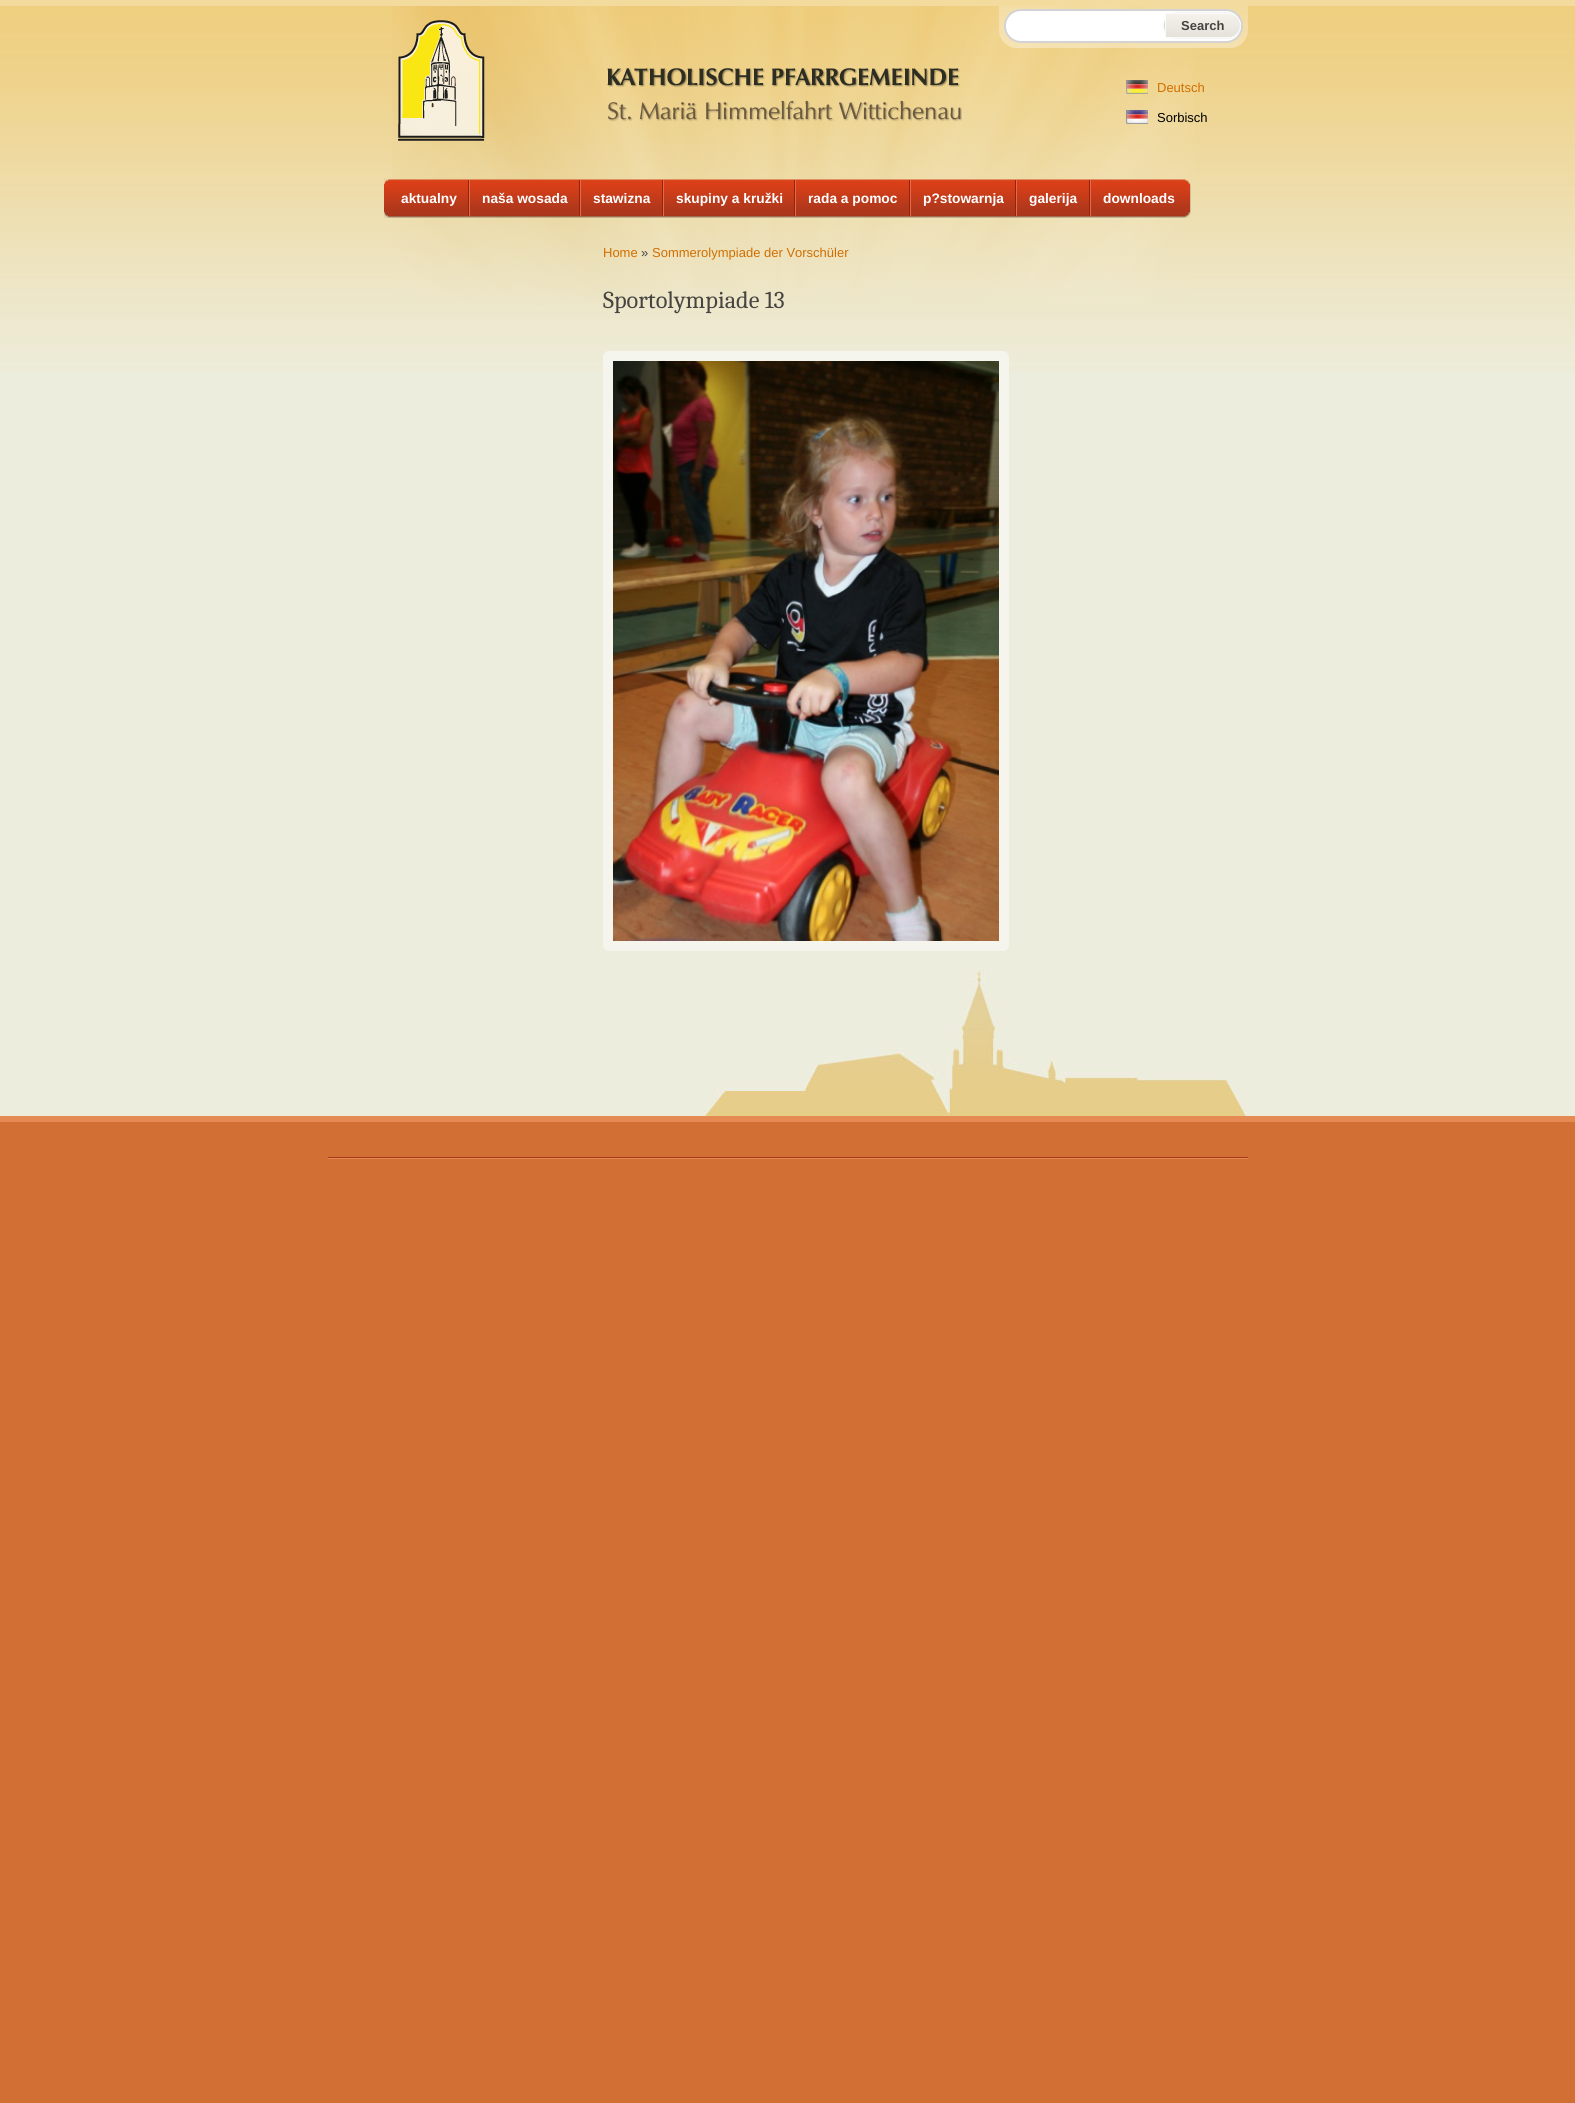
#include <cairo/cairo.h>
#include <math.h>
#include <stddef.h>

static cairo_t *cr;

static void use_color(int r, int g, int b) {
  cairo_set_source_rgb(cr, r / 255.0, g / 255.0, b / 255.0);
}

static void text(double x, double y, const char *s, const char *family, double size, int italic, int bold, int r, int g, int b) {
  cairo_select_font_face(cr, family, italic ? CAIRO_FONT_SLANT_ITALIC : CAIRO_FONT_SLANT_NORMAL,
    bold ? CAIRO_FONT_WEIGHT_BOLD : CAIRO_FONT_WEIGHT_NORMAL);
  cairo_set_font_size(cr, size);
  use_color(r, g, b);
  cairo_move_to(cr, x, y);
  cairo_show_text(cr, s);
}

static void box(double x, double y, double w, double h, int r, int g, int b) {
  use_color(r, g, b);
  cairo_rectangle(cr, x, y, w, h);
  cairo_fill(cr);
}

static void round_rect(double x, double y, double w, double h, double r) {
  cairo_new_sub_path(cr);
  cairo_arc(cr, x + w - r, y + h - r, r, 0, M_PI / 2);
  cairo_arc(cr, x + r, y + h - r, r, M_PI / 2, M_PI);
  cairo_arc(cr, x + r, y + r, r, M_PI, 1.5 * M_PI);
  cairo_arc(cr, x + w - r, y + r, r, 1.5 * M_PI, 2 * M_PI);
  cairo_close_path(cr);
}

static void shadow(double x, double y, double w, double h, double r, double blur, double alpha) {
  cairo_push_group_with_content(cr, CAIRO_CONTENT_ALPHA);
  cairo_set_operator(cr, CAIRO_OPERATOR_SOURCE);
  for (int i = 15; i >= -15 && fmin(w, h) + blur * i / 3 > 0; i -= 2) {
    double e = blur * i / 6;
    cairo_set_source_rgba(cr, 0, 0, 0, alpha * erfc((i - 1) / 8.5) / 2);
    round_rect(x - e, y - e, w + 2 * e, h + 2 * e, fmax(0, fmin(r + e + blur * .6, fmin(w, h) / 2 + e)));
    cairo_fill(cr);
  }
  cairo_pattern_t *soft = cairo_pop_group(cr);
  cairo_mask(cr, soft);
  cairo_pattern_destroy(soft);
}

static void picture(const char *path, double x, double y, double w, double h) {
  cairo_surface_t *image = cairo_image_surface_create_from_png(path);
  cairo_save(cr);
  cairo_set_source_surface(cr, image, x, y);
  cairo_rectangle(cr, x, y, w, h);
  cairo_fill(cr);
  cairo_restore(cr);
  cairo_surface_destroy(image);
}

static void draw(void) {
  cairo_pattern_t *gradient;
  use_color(209, 111, 52);
  cairo_paint(cr);
  box(0, 0, 1575, 6, 242, 219, 157);
  box(0, 372, 1575, 744, 237, 237, 221);
  picture("img_01.png", 0, 6, 1575, 366);
  picture("img_02.png", 392, 6, 802, 299);
  picture("img_03.png", 398, 20, 564, 121);
  picture("img_04.png", 999, 6, 249, 42);
  use_color(255, 255, 255);
  round_rect(1005, 10, 237, 32, 16);
  cairo_fill_preserve(cr);
  use_color(211, 211, 211);
  cairo_stroke(cr);
  use_color(211, 211, 211);
  shadow(1164, 13, 76, 25, 12.5, 0.5, 1);
  cairo_save(cr);
  cairo_new_path(cr);
  cairo_move_to(cr, 1165, 13);
  cairo_line_to(cr, 1228.5, 13);
  cairo_curve_to(cr, 1235.5, 13, 1241, 18.5, 1241, 25.5);
  cairo_curve_to(cr, 1241, 32.5, 1235.5, 38, 1228.5, 38);
  cairo_line_to(cr, 1165, 38);
  cairo_close_path(cr);
  cairo_clip(cr);
  gradient = cairo_pattern_create_linear(1203, 14, 1203, 37);
  cairo_pattern_add_color_stop_rgba(gradient, 0, 0.957, 0.949, 0.922, 1);
  cairo_pattern_add_color_stop_rgba(gradient, 1, 0.898, 0.886, 0.859, 1);
  cairo_set_source(cr, gradient);
  cairo_pattern_destroy(gradient);
  cairo_rectangle(cr, 1166, 14, 75, 23);
  cairo_fill(cr);
  cairo_restore(cr);
  cairo_new_path(cr);
  cairo_move_to(cr, 1165.5, 13.5);
  cairo_line_to(cr, 1228.5, 13.5);
  cairo_curve_to(cr, 1235, 13.5, 1240.5, 19, 1240.5, 25.5);
  cairo_curve_to(cr, 1240.5, 32, 1235, 37.5, 1228.5, 37.5);
  cairo_line_to(cr, 1165.5, 37.5);
  cairo_close_path(cr);
  use_color(250, 250, 246);
  cairo_set_line_width(cr, 1);
  cairo_stroke(cr);
  picture("img_05.png", 1126, 80, 22, 14);
  picture("img_06.png", 1126, 110, 22, 14);
  picture("img_07.png", 384, 179, 85, 39);
  box(468, 180, 1, 36, 140, 38, 14);
  picture("img_08.png", 469, 179, 111, 39);
  box(579, 180, 1, 36, 140, 38, 14);
  box(469, 180, 1, 36, 235, 103, 69);
  picture("img_09.png", 580, 179, 83, 39);
  box(662, 180, 1, 36, 140, 38, 14);
  box(580, 180, 1, 36, 235, 103, 69);
  picture("img_10.png", 663, 179, 132, 39);
  box(794, 180, 1, 36, 140, 38, 14);
  box(663, 180, 1, 36, 235, 103, 69);
  picture("img_11.png", 795, 179, 115, 39);
  box(909, 180, 1, 36, 140, 38, 14);
  box(795, 180, 1, 36, 235, 103, 69);
  picture("img_12.png", 910, 179, 106, 39);
  box(1015, 180, 1, 36, 140, 38, 14);
  box(910, 180, 1, 36, 235, 103, 69);
  picture("img_13.png", 1016, 179, 74, 39);
  box(1089, 180, 1, 36, 140, 38, 14);
  box(1016, 180, 1, 36, 235, 103, 69);
  picture("img_14.png", 1090, 179, 101, 39);
  box(1090, 180, 1, 36, 235, 103, 69);
  round_rect(608, 356, 396, 590, 1);
  use_color(245, 245, 237);
  cairo_set_line_width(cr, 10);
  cairo_stroke(cr);
  picture("img_15.png", 613, 361, 386, 580);
  picture("img_16.png", 699, 967, 549, 149);
  box(0, 1116, 1575, 6, 230, 138, 83);
  picture("img_17.png", 328, 1157, 920, 2);
  text(1181, 30, "Search", "Liberation Sans", 13, 0, 1, 70, 68, 65);
  text(1157, 92, "Deutsch", "Liberation Sans", 13, 0, 0, 209, 110, 0);
  text(1157, 122, "Sorbisch", "Liberation Sans", 13, 0, 0, 0, 0, 0);
  text(401, 203, "aktualny", "Liberation Sans", 13.75, 0, 1, 255, 255, 255);
  text(482, 203, "naša wosada", "Liberation Sans", 13.75, 0, 1, 255, 255, 255);
  text(593, 203, "stawizna", "Liberation Sans", 13.75, 0, 1, 255, 255, 255);
  text(676, 203, "skupiny a kružki", "Liberation Sans", 13.75, 0, 1, 255, 255, 255);
  text(808, 203, "rada a pomoc", "Liberation Sans", 13.75, 0, 1, 255, 255, 255);
  text(923, 203, "p?stowarnja", "Liberation Sans", 13.75, 0, 1, 255, 255, 255);
  text(1029, 203, "galerija", "Liberation Sans", 13.75, 0, 1, 255, 255, 255);
  text(1103, 203, "downloads", "Liberation Sans", 13.75, 0, 1, 255, 255, 255);
  text(603, 257, "Home", "Liberation Sans", 13, 0, 0, 209, 110, 0);
  text(641, 257, "»", "Liberation Sans", 13, 0, 0, 70, 68, 65);
  text(652, 257, "Sommerolympiade der Vorschüler", "Liberation Sans", 13, 0, 0, 209, 110, 0);
  text(603, 308, "Sportolympiade 13", "Caladea", 24.25, 0, 0, 70, 68, 65);
}

int main(void) {
  cairo_surface_t *surface = cairo_image_surface_create(CAIRO_FORMAT_RGB24, 1575, 2103);
  cr = cairo_create(surface);
  cairo_font_options_t *options = cairo_font_options_create();
  cairo_font_options_set_hint_metrics(options, CAIRO_HINT_METRICS_OFF);
  cairo_font_options_set_hint_style(options, CAIRO_HINT_STYLE_NONE);
  cairo_set_font_options(cr, options);
  cairo_set_miter_limit(cr, 4);
  draw();
  cairo_surface_write_to_png(surface, "out.png");
  cairo_font_options_destroy(options);
  cairo_destroy(cr);
  cairo_surface_destroy(surface);
  return 0;
}
